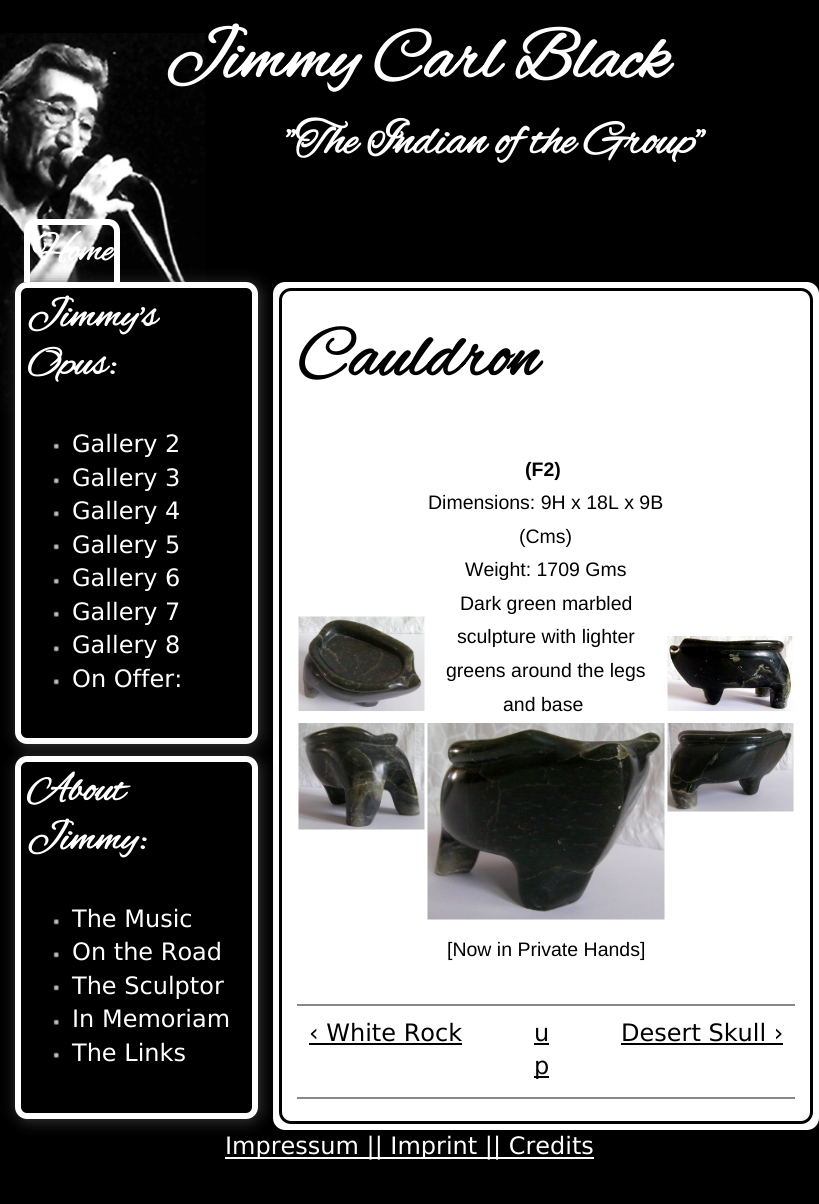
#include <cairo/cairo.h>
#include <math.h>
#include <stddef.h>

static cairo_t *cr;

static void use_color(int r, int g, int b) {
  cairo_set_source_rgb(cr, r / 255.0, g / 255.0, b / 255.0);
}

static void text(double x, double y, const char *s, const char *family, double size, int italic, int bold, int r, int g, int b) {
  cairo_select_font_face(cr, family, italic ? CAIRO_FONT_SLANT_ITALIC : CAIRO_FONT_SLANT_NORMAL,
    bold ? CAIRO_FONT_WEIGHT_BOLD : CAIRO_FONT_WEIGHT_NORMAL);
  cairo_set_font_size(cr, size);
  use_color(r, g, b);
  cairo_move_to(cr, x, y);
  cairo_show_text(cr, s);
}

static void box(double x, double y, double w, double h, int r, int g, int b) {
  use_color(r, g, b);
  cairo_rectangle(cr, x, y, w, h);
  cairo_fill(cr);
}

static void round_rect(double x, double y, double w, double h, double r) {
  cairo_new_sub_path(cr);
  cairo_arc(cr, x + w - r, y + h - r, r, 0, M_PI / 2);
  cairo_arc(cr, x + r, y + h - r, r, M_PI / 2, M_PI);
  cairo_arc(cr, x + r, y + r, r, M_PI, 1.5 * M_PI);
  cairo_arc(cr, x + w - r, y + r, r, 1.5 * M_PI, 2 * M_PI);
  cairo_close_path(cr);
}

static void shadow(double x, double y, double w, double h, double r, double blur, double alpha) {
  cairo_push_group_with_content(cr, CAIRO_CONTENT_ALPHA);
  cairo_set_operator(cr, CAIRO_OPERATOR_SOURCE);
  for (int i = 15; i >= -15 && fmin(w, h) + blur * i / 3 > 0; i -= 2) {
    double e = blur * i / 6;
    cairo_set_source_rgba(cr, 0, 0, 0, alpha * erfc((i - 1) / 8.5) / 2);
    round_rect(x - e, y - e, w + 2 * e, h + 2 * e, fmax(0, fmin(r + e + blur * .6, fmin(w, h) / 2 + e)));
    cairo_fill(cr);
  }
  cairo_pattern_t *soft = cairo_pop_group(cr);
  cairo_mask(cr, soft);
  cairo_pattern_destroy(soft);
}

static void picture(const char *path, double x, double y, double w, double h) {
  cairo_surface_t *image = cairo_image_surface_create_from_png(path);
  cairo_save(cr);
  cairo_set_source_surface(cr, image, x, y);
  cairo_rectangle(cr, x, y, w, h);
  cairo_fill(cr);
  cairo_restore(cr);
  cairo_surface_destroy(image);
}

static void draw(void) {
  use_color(0, 0, 0);
  cairo_paint(cr);
  picture("img_01.png", 0, 33, 206, 380);
  use_color(255, 255, 255);
  round_rect(276, 285, 540, 842, 9);
  cairo_fill_preserve(cr);
  cairo_set_line_width(cr, 6);
  cairo_stroke(cr);
  round_rect(280.5, 289.5, 531, 833, 10.5);
  use_color(0, 0, 0);
  cairo_set_line_width(cr, 3);
  cairo_stroke(cr);
  use_color(56, 55, 55);
  shadow(17, 284, 243, 462, 12, 7.5, 1);
  use_color(255, 255, 255);
  cairo_set_fill_rule(cr, CAIRO_FILL_RULE_EVEN_ODD);
  cairo_new_path(cr);
  cairo_move_to(cr, 36, 219);
  cairo_line_to(cr, 108, 219);
  cairo_curve_to(cr, 115, 219, 120, 224, 120, 231);
  cairo_line_to(cr, 120, 282);
  cairo_line_to(cr, 24, 282);
  cairo_line_to(cr, 24, 231);
  cairo_curve_to(cr, 24, 224, 29, 219, 36, 219);
  cairo_close_path(cr);
  cairo_move_to(cr, 36, 225);
  cairo_line_to(cr, 108, 225);
  cairo_curve_to(cr, 111, 225, 114, 228, 114, 231);
  cairo_line_to(cr, 114, 282);
  cairo_line_to(cr, 30, 282);
  cairo_line_to(cr, 30, 231);
  cairo_curve_to(cr, 30, 228, 33, 225, 36, 225);
  cairo_close_path(cr);
  cairo_fill(cr);
  use_color(0, 0, 0);
  round_rect(18, 285, 237, 456, 9);
  cairo_fill_preserve(cr);
  use_color(255, 255, 255);
  cairo_set_line_width(cr, 6);
  cairo_stroke(cr);
  picture("img_02.png", 53, 443, 6, 6);
  picture("img_03.png", 53, 478, 6, 6);
  picture("img_03.png", 53, 511, 6, 6);
  picture("img_03.png", 53, 544, 6, 6);
  picture("img_02.png", 53, 578, 6, 6);
  picture("img_02.png", 53, 611, 6, 6);
  picture("img_03.png", 53, 646, 6, 6);
  picture("img_03.png", 53, 679, 6, 6);
  use_color(56, 55, 55);
  shadow(17, 758, 243, 363, 12, 7.5, 1);
  use_color(0, 0, 0);
  round_rect(18, 759, 237, 357, 9);
  cairo_fill_preserve(cr);
  use_color(255, 255, 255);
  cairo_stroke(cr);
  picture("img_03.png", 53, 919, 6, 6);
  picture("img_03.png", 53, 952, 6, 6);
  picture("img_03.png", 53, 985, 6, 6);
  picture("img_02.png", 53, 1019, 6, 6);
  picture("img_02.png", 53, 1052, 6, 6);
  picture("img_04.png", 298, 616, 127, 95);
  picture("img_05.png", 667, 636, 127, 75);
  picture("img_06.png", 298, 723, 127, 107);
  picture("img_07.png", 427, 723, 238, 197);
  picture("img_08.png", 667, 723, 127, 89);
  box(297, 1004, 498, 2, 136, 136, 136);
  box(297, 1097, 498, 2, 136, 136, 136);
  box(309, 1043, 153, 2, 0, 0, 0);
  box(534, 1043, 15, 2, 0, 0, 0);
  box(534, 1076, 15, 2, 0, 0, 0);
  box(621, 1043, 162, 2, 0, 0, 0);
  box(225, 1157, 369, 2, 255, 255, 255);
  text(165, 77, "Jimmy Carl Black", "Alex Brush", 72, 0, 1, 255, 255, 255);
  text(285, 153, "\"The Indian of the Group\"", "Alex Brush", 48, 0, 1, 255, 255, 255);
  text(32, 260, "Home", "Alex Brush", 38, 0, 1, 255, 255, 255);
  text(27, 326, "Jimmy's", "Alex Brush", 41, 0, 1, 255, 255, 255);
  text(27, 374, "Opus:", "Alex Brush", 41, 0, 1, 255, 255, 255);
  text(72, 452, "Gallery 2", "DejaVu Sans", 24, 0, 0, 255, 255, 255);
  text(72, 486, "Gallery 3", "DejaVu Sans", 24, 0, 0, 255, 255, 255);
  text(72, 519, "Gallery 4", "DejaVu Sans", 24, 0, 0, 255, 255, 255);
  text(72, 553, "Gallery 5", "DejaVu Sans", 24, 0, 0, 255, 255, 255);
  text(72, 586, "Gallery 6", "DejaVu Sans", 24, 0, 0, 255, 255, 255);
  text(72, 620, "Gallery 7", "DejaVu Sans", 24, 0, 0, 255, 255, 255);
  text(72, 653, "Gallery 8", "DejaVu Sans", 24, 0, 0, 255, 255, 255);
  text(72, 687, "On Offer:", "DejaVu Sans", 24, 0, 0, 255, 255, 255);
  text(27, 800, "About", "Alex Brush", 41, 0, 1, 255, 255, 255);
  text(27, 849, "Jimmy:", "Alex Brush", 41, 0, 1, 255, 255, 255);
  text(72, 927, "The Music", "DejaVu Sans", 24, 0, 0, 255, 255, 255);
  text(72, 960, "On the Road", "DejaVu Sans", 24, 0, 0, 255, 255, 255);
  text(72, 994, "The Sculptor", "DejaVu Sans", 24, 0, 0, 255, 255, 255);
  text(72, 1027, "In Memoriam", "DejaVu Sans", 24, 0, 0, 255, 255, 255);
  text(72, 1061, "The Links", "DejaVu Sans", 24, 0, 0, 255, 255, 255);
  text(297, 375, "Cauldron", "Alex Brush", 72, 0, 1, 0, 0, 0);
  text(525, 476, "(F2)", "Liberation Sans", 19.5, 0, 1, 0, 0, 0);
  text(428, 509, "Dimensions: 9H x 18L x 9B", "Liberation Sans", 19.5, 0, 0, 0, 0, 0);
  text(519, 543, "(Cms)", "Liberation Sans", 19.5, 0, 0, 0, 0, 0);
  text(465, 576, "Weight: 1709 Gms", "Liberation Sans", 19.5, 0, 0, 0, 0, 0);
  text(460, 610, "Dark green marbled", "Liberation Sans", 19.5, 0, 0, 0, 0, 0);
  text(457, 643, "sculpture with lighter", "Liberation Sans", 19.5, 0, 0, 0, 0, 0);
  text(446, 677, "greens around the legs", "Liberation Sans", 19.5, 0, 0, 0, 0, 0);
  text(503, 711, "and base", "Liberation Sans", 19.5, 0, 0, 0, 0, 0);
  text(447, 956, "[Now in Private Hands]", "Liberation Sans", 19.5, 0, 0, 0, 0, 0);
  text(309, 1041, "‹ White Rock", "DejaVu Sans", 24, 0, 0, 0, 0, 0);
  text(534, 1041, "u", "DejaVu Sans", 24, 0, 0, 0, 0, 0);
  text(534, 1074, "p", "DejaVu Sans", 24, 0, 0, 0, 0, 0);
  text(621, 1041, "Desert Skull ›", "DejaVu Sans", 24, 0, 0, 0, 0, 0);
  text(225, 1154, "Impressum || Imprint || Credits", "DejaVu Sans", 24, 0, 0, 255, 255, 255);
}

int main(void) {
  cairo_surface_t *surface = cairo_image_surface_create(CAIRO_FORMAT_RGB24, 819, 1204);
  cr = cairo_create(surface);
  cairo_font_options_t *options = cairo_font_options_create();
  cairo_font_options_set_hint_metrics(options, CAIRO_HINT_METRICS_OFF);
  cairo_font_options_set_hint_style(options, CAIRO_HINT_STYLE_NONE);
  cairo_set_font_options(cr, options);
  cairo_set_miter_limit(cr, 4);
  draw();
  cairo_surface_write_to_png(surface, "out.png");
  cairo_font_options_destroy(options);
  cairo_destroy(cr);
  cairo_surface_destroy(surface);
  return 0;
}
